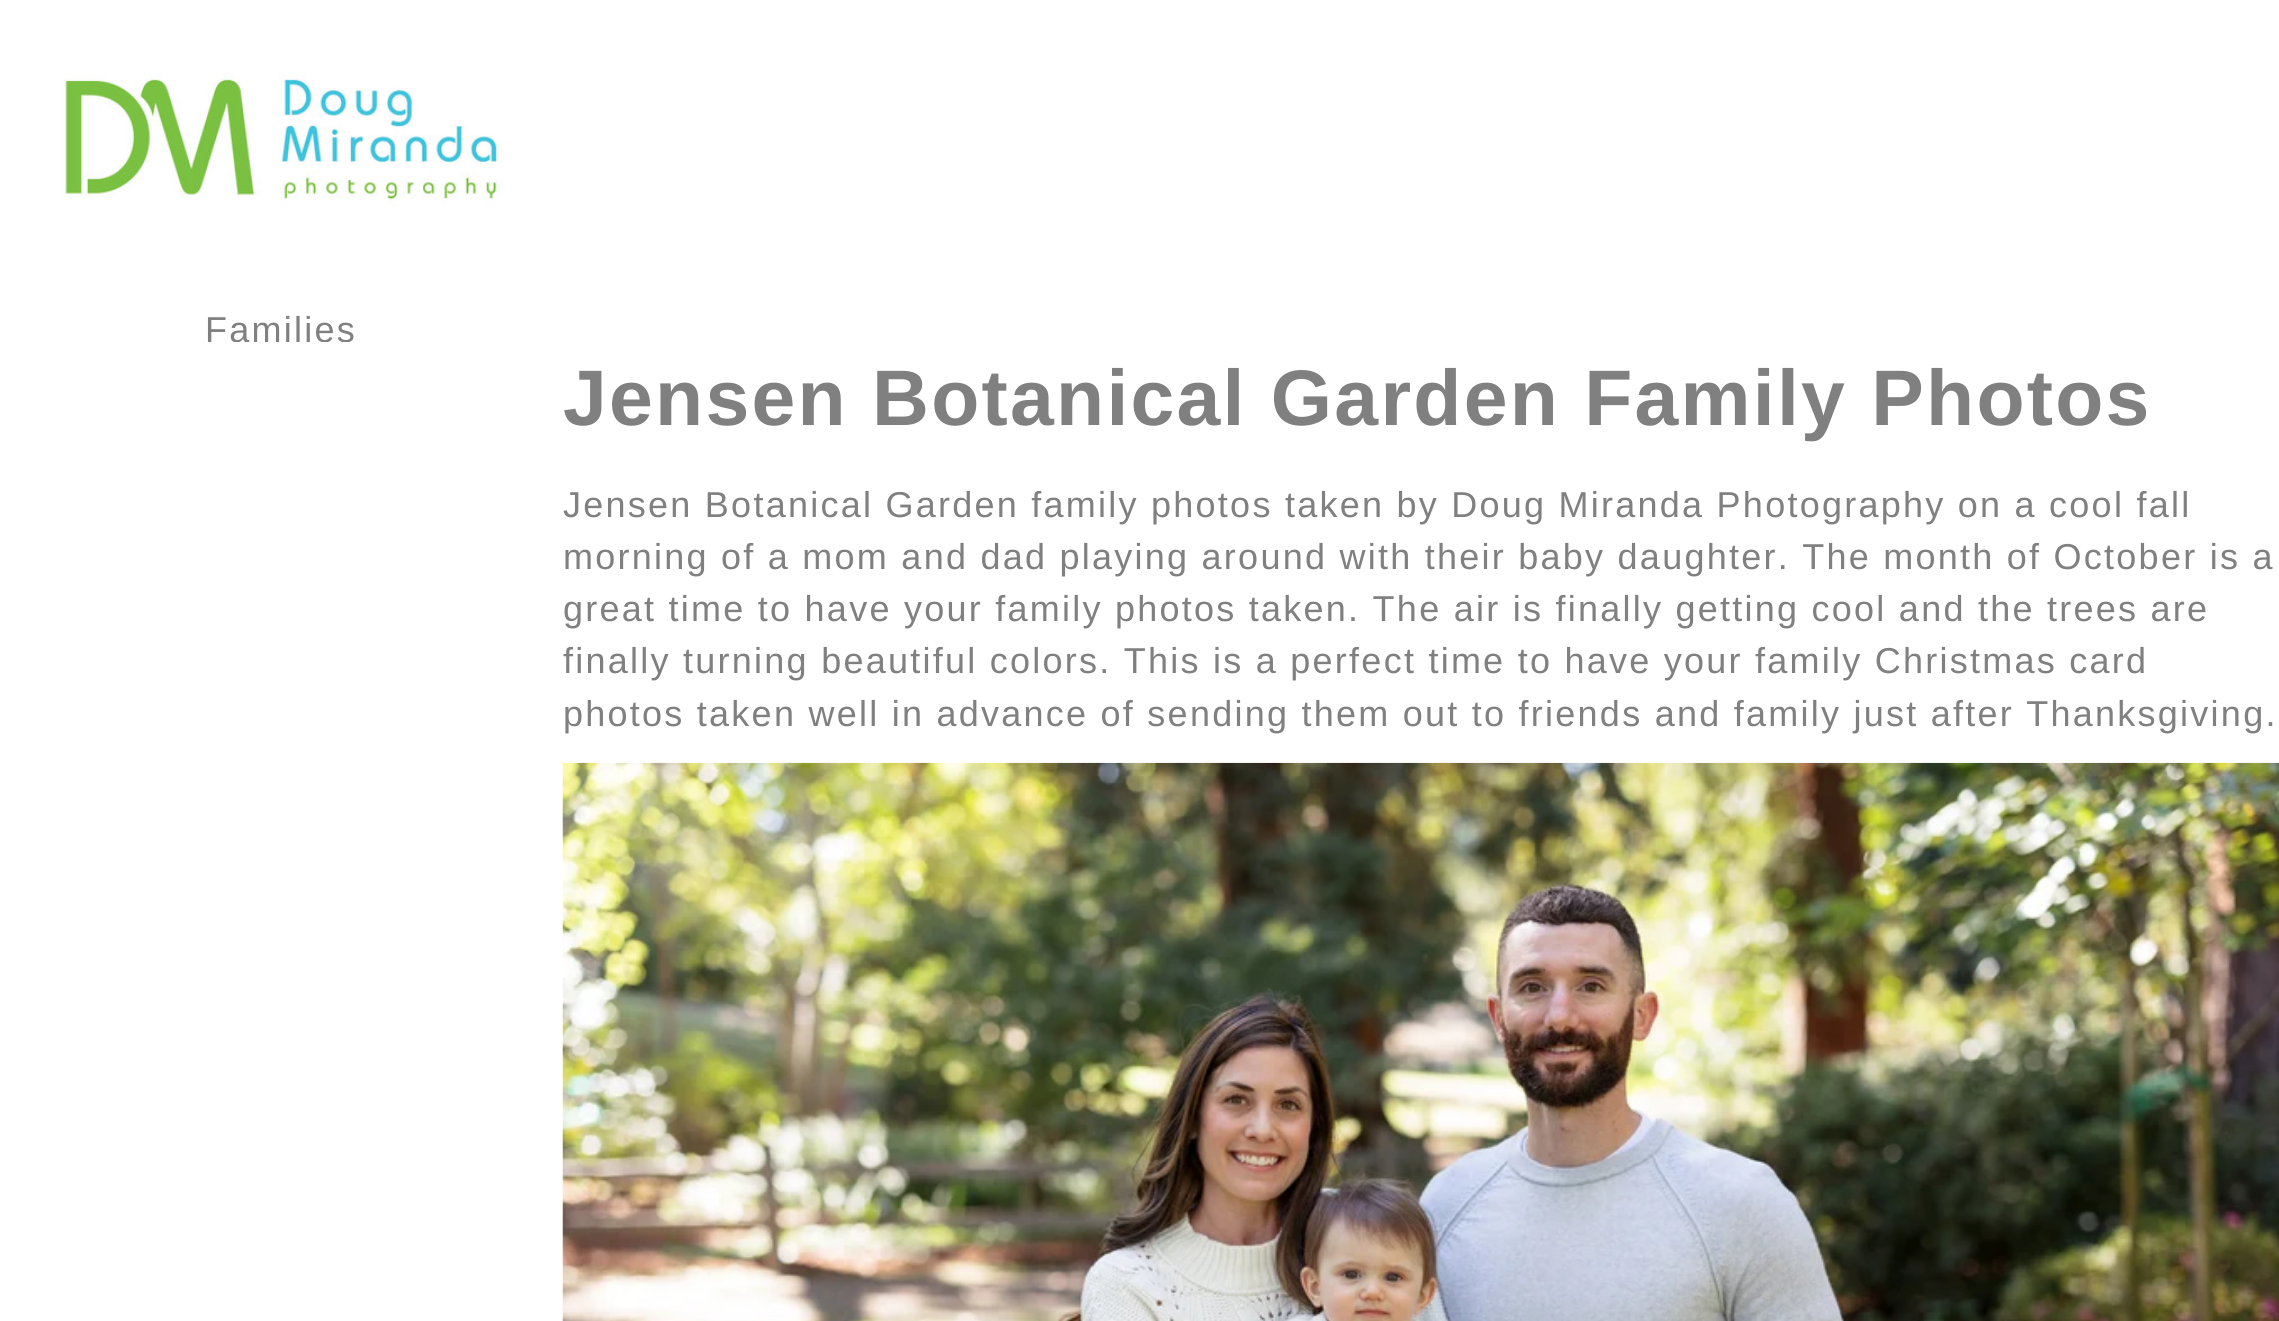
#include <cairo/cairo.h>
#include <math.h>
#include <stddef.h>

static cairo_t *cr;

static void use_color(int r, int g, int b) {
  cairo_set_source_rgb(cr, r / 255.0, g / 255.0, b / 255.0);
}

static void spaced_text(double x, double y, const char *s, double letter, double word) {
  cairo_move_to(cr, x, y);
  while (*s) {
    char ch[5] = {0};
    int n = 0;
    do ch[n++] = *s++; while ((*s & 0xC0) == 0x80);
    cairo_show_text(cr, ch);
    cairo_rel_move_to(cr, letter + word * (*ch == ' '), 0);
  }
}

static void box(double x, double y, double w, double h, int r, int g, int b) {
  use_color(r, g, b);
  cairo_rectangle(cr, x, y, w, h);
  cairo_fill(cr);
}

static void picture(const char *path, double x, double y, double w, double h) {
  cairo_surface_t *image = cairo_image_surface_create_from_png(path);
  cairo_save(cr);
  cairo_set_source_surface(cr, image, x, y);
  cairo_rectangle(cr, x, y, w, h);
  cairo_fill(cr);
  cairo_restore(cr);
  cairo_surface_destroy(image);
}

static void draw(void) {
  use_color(255, 255, 255);
  cairo_paint(cr);
  picture("img_01.png", 63, 72, 441, 135);
  picture("img_02.png", 562, 762, 1717, 559);
  cairo_select_font_face(cr, "Liberation Sans", CAIRO_FONT_SLANT_NORMAL, CAIRO_FONT_WEIGHT_NORMAL);
  cairo_set_font_size(cr, 36);
  use_color(128, 128, 128);
  spaced_text(205, 342, "Families", 2.25, 0);
  box(234, 342, 115, 1, 255, 255, 255);
  cairo_select_font_face(cr, "Liberation Sans", CAIRO_FONT_SLANT_NORMAL, CAIRO_FONT_WEIGHT_BOLD);
  cairo_set_font_size(cr, 78.75);
  use_color(128, 128, 128);
  spaced_text(563, 425, "Jensen Botanical Garden Family Photos", 2.25, 0);
  cairo_select_font_face(cr, "Liberation Sans", CAIRO_FONT_SLANT_NORMAL, CAIRO_FONT_WEIGHT_NORMAL);
  cairo_set_font_size(cr, 36);
  spaced_text(563, 517, "Jensen Botanical Garden family photos taken by Doug Miranda Photography on a cool fall", 2.25, 0);
  spaced_text(563, 569, "morning of a mom and dad playing around with their baby daughter. The month of October is a", 2.25, 0);
  spaced_text(563, 621, "great time to have your family photos taken. The air is finally getting cool and the trees are", 2.25, 0);
  spaced_text(563, 673, "finally turning beautiful colors. This is a perfect time to have your family Christmas card", 2.25, 0);
  spaced_text(563, 726, "photos taken well in advance of sending them out to friends and family just after Thanksgiving.", 2.25, 0);
}

int main(void) {
  cairo_surface_t *surface = cairo_image_surface_create(CAIRO_FORMAT_RGB24, 2279, 1321);
  cr = cairo_create(surface);
  cairo_font_options_t *options = cairo_font_options_create();
  cairo_font_options_set_hint_metrics(options, CAIRO_HINT_METRICS_OFF);
  cairo_font_options_set_hint_style(options, CAIRO_HINT_STYLE_NONE);
  cairo_set_font_options(cr, options);
  cairo_set_miter_limit(cr, 4);
  draw();
  cairo_surface_write_to_png(surface, "out.png");
  cairo_font_options_destroy(options);
  cairo_destroy(cr);
  cairo_surface_destroy(surface);
  return 0;
}
